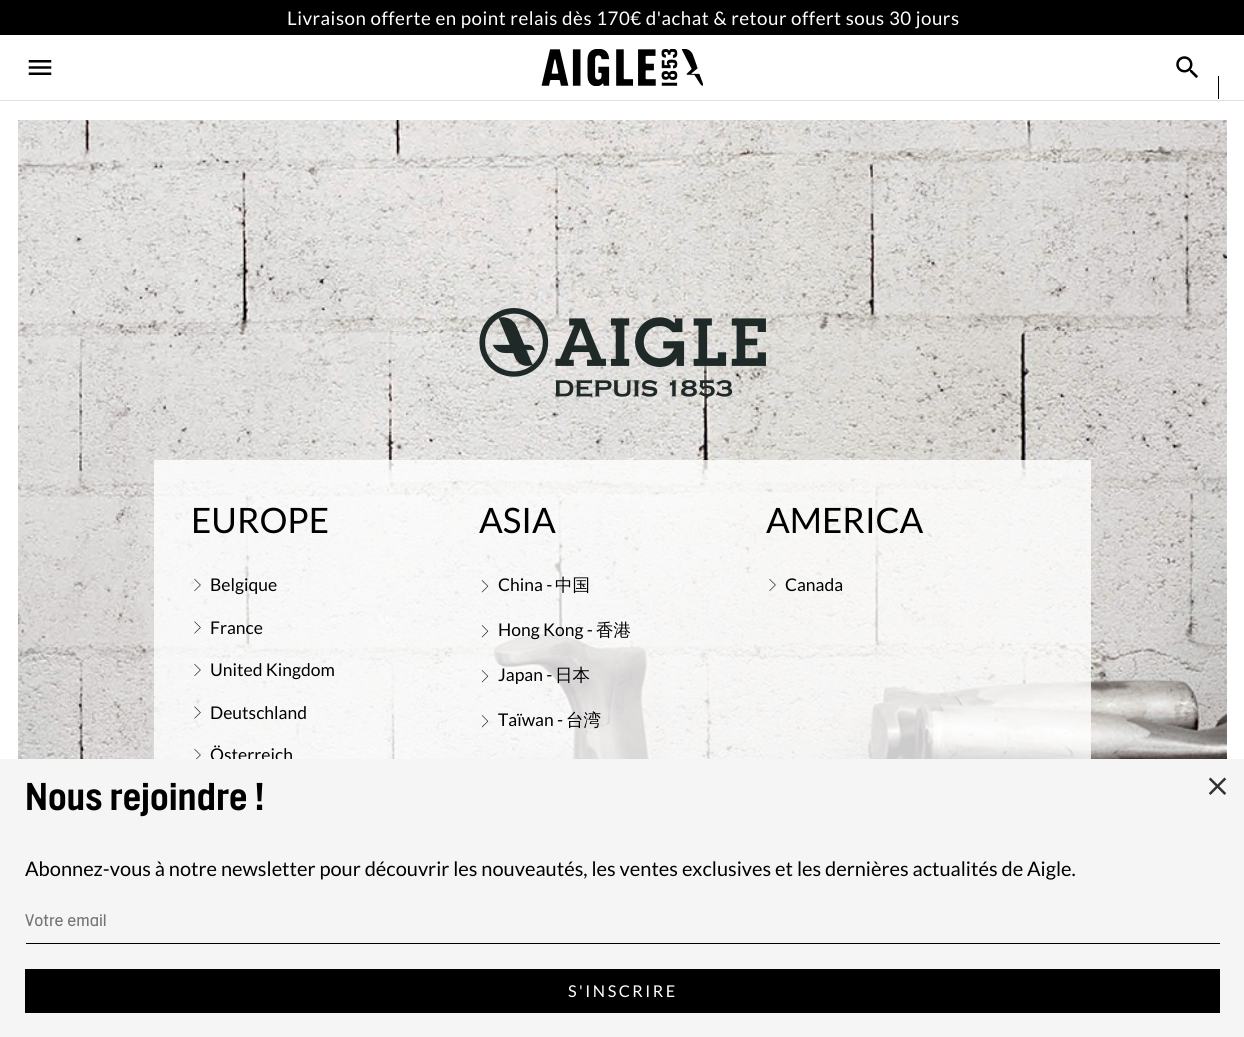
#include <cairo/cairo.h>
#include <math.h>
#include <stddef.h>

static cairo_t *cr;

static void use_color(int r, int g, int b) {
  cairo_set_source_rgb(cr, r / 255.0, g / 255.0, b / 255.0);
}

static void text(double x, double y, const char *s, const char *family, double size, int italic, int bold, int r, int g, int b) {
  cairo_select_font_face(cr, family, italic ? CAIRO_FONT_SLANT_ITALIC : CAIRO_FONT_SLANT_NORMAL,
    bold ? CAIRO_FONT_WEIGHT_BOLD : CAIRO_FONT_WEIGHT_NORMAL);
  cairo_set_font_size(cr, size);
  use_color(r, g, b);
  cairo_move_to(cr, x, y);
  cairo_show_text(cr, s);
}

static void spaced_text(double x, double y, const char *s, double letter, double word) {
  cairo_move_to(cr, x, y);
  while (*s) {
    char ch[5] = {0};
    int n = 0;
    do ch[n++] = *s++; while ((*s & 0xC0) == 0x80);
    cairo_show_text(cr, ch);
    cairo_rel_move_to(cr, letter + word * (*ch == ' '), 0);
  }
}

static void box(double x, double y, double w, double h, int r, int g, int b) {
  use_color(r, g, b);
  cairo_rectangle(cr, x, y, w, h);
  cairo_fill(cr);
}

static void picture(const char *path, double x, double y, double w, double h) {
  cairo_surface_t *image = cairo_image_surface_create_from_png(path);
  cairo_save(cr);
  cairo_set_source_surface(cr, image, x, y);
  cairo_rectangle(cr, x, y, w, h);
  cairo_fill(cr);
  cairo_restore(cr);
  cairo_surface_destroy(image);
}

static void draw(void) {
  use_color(255, 255, 255);
  cairo_paint(cr);
  box(0, 100, 1244, 1, 224, 224, 224);
  box(0, 0, 1244, 35, 0, 0, 0);
  picture("img_01.png", 28, 60, 24, 15);
  picture("img_02.png", 541, 49, 162, 37);
  picture("img_03.png", 1176, 56, 22, 22);
  box(1218, 76, 1, 23, 0, 0, 0);
  picture("img_04.png", 18, 120, 1209, 639);
  picture("img_05.png", 479, 308, 287, 90);
  cairo_set_source_rgba(cr, 1, 1, 1, 0.8);
  cairo_rectangle(cr, 154, 460, 937, 299);
  cairo_fill(cr);
  picture("img_06.png", 194, 578, 7, 13);
  picture("img_07.png", 194, 621, 7, 13);
  picture("img_08.png", 194, 663, 7, 13);
  picture("img_09.png", 194, 706, 7, 13);
  picture("img_10.png", 194, 748, 7, 11);
  picture("img_11.png", 481, 580, 8, 13);
  picture("img_12.png", 481, 625, 8, 13);
  picture("img_13.png", 481, 670, 8, 13);
  picture("img_14.png", 481, 715, 8, 13);
  picture("img_15.png", 769, 578, 7, 13);
  cairo_select_font_face(cr, "Lato", CAIRO_FONT_SLANT_NORMAL, CAIRO_FONT_WEIGHT_NORMAL);
  cairo_set_font_size(cr, 18.75);
  use_color(255, 255, 255);
  spaced_text(287, 25, "Livraison offerte en point relais dès 170€ d'achat & retour offert sous 30 jours", 0.5, 0);
  text(191, 533, "EUROPE", "Lato", 35, 0, 0, 0, 0, 0);
  text(210, 591, "Belgique", "Lato", 17.5, 0, 0, 0, 0, 0);
  text(210, 634, "France", "Lato", 17.5, 0, 0, 0, 0, 0);
  text(210, 676, "United Kingdom", "Lato", 17.5, 0, 0, 0, 0, 0);
  text(210, 719, "Deutschland", "Lato", 17.5, 0, 0, 0, 0, 0);
  text(210, 761, "Österreich", "Lato", 17.5, 0, 0, 0, 0, 0);
  text(479, 533, "ASIA", "Lato", 35, 0, 0, 0, 0, 0);
  text(498, 591, "China -", "Lato", 17.5, 0, 0, 0, 0, 0);
  text(555, 591, "中国", "WenQuanYi Zen Hei Medium", 17.5, 0, 0, 0, 0, 0);
  text(498, 636, "Hong Kong -", "Lato", 17.5, 0, 0, 0, 0, 0);
  text(596, 636, "香港", "WenQuanYi Zen Hei Medium", 17.5, 0, 0, 0, 0, 0);
  text(498, 681, "Japan -", "Lato", 17.5, 0, 0, 0, 0, 0);
  text(555, 681, "日本", "WenQuanYi Zen Hei Medium", 17.5, 0, 0, 0, 0, 0);
  text(498, 726, "Taïwan -", "Lato", 17.5, 0, 0, 0, 0, 0);
  text(566, 726, "台湾", "WenQuanYi Zen Hei Medium", 17.5, 0, 0, 0, 0, 0);
  text(766, 533, "AMERICA", "Lato", 35, 0, 0, 0, 0, 0);
  text(785, 591, "Canada", "Lato", 17.5, 0, 0, 0, 0, 0);
  box(0, 759, 1244, 278, 245, 245, 245);
  text(25, 810, "Nous rejoindre !", "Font", 37.5, 0, 1, 0, 0, 0);
  picture("img_16.png", 1208, 777, 19, 18);
  text(25, 876, "Abonnez-vous à notre newsletter pour découvrir les nouveautés, les ventes exclusives et les dernières actualités de Aigle.", "Lato", 20, 0, 0, 0, 0, 0);
  box(26, 943, 1194, 1, 0, 0, 0);
  text(25, 926, "Votre email", "Font", 16.25, 0, 0, 117, 117, 117);
  box(25, 969, 1195, 44, 0, 0, 0);
  cairo_select_font_face(cr, "Lato", CAIRO_FONT_SLANT_NORMAL, CAIRO_FONT_WEIGHT_NORMAL);
  use_color(255, 255, 255);
  spaced_text(568, 997, "S'INSCRIRE", 2.5, 0);
}

int main(void) {
  cairo_surface_t *surface = cairo_image_surface_create(CAIRO_FORMAT_RGB24, 1244, 1037);
  cr = cairo_create(surface);
  cairo_font_options_t *options = cairo_font_options_create();
  cairo_font_options_set_hint_metrics(options, CAIRO_HINT_METRICS_OFF);
  cairo_font_options_set_hint_style(options, CAIRO_HINT_STYLE_NONE);
  cairo_set_font_options(cr, options);
  cairo_set_miter_limit(cr, 4);
  draw();
  cairo_surface_write_to_png(surface, "out.png");
  cairo_font_options_destroy(options);
  cairo_destroy(cr);
  cairo_surface_destroy(surface);
  return 0;
}
